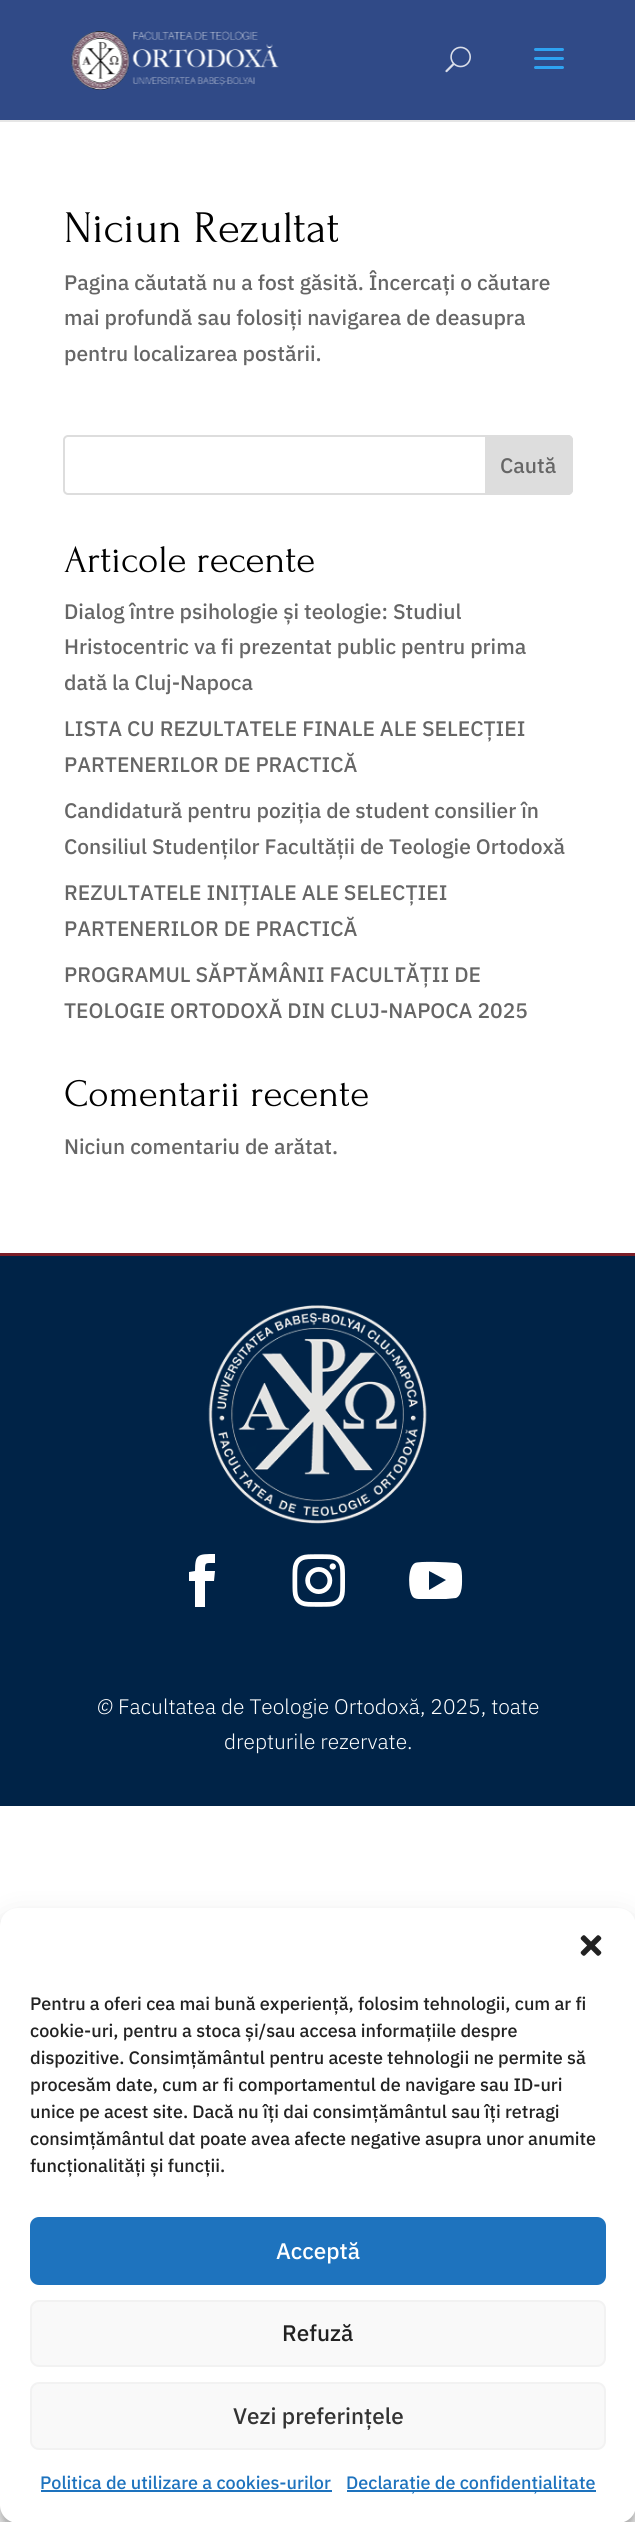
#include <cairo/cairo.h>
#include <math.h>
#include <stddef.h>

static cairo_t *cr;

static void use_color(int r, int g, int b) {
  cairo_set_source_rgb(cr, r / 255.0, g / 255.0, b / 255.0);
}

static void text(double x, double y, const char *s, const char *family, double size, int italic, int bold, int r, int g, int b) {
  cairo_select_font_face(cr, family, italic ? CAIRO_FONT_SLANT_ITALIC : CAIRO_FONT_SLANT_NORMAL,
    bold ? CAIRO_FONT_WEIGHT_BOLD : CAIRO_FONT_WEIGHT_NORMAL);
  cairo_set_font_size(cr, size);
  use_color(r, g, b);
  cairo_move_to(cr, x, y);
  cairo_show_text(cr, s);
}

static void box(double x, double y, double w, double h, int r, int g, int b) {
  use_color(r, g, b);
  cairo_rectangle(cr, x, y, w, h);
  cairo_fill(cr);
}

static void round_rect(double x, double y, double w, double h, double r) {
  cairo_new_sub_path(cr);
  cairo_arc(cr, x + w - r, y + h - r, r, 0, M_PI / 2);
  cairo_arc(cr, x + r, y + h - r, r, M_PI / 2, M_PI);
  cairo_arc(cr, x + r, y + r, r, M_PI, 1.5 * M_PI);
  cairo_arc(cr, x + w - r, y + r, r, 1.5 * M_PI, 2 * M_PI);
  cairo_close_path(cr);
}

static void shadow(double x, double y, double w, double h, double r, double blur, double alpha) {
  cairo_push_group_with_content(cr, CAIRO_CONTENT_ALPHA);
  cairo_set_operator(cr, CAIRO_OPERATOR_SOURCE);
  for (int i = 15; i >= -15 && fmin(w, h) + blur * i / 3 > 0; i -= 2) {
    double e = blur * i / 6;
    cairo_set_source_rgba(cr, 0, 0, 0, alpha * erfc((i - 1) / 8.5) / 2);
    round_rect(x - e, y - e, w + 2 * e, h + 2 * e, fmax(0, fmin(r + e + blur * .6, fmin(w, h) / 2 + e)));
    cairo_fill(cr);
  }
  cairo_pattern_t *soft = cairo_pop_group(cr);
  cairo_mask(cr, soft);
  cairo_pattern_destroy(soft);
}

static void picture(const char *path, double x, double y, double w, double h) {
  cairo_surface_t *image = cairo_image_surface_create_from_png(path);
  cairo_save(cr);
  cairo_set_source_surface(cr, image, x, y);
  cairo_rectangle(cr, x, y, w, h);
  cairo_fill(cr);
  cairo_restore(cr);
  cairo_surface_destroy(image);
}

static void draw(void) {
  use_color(255, 255, 255);
  cairo_paint(cr);
  box(0, 120, 635, 2, 230, 230, 230);
  box(0, 0, 635, 120, 48, 74, 135);
  picture("img_01.png", 71, 31, 208, 59);
  picture("img_02.png", 445, 46, 26, 27);
  picture("img_03.png", 534, 48, 30, 21);
  round_rect(64, 436, 508, 58, 4);
  use_color(221, 221, 221);
  cairo_stroke(cr);
  cairo_new_path(cr);
  cairo_move_to(cr, 486, 436);
  cairo_line_to(cr, 568, 436);
  cairo_curve_to(cr, 570, 436, 572, 438, 572, 440);
  cairo_line_to(cr, 572, 490);
  cairo_curve_to(cr, 572, 492, 570, 494, 568, 494);
  cairo_line_to(cr, 486, 494);
  cairo_close_path(cr);
  cairo_fill_preserve(cr);
  cairo_stroke(cr);
  box(0, 1256, 635, 550, 0, 35, 71);
  box(0, 1253, 635, 3, 123, 30, 40);
  picture("img_04.png", 208, 1305, 219, 219);
  use_color(255, 255, 255);
  cairo_new_path(cr);
  cairo_move_to(cr, 195, 1607);
  cairo_line_to(cr, 205, 1607);
  cairo_line_to(cr, 205, 1581);
  cairo_line_to(cr, 214, 1581);
  cairo_line_to(cr, 215, 1571);
  cairo_line_to(cr, 205, 1571);
  cairo_curve_to(cr, 205, 1562, 205, 1563, 215, 1563);
  cairo_line_to(cr, 215, 1554);
  cairo_curve_to(cr, 198, 1554, 195, 1554, 195, 1571);
  cairo_line_to(cr, 189, 1572);
  cairo_line_to(cr, 189, 1581);
  cairo_line_to(cr, 195, 1581);
  cairo_close_path(cr);
  cairo_fill(cr);
  picture("img_05.png", 292, 1554, 53, 53);
  cairo_new_path(cr);
  cairo_move_to(cr, 455, 1563);
  cairo_curve_to(cr, 448, 1562, 419, 1561, 415, 1563);
  cairo_curve_to(cr, 407, 1567, 408, 1592, 413, 1597);
  cairo_curve_to(cr, 415, 1599, 418, 1599, 420, 1599);
  cairo_line_to(cr, 446, 1599);
  cairo_line_to(cr, 456, 1598);
  cairo_curve_to(cr, 463, 1595, 462, 1582, 462, 1576);
  cairo_curve_to(cr, 462, 1571, 461, 1563, 455, 1563);
  cairo_close_path(cr);
  cairo_move_to(cr, 429, 1590);
  cairo_line_to(cr, 429, 1571);
  cairo_line_to(cr, 446, 1580);
  cairo_close_path(cr);
  cairo_fill(cr);
  use_color(0, 0, 0);
  shadow(0, 1917, 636, 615, 18, 4.5, 0.23);
  shadow(0, 1923, 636, 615, 18, 15, 0.19);
  use_color(255, 255, 255);
  round_rect(0, 1908, 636, 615, 18);
  cairo_fill(cr);
  picture("img_06.png", 580, 1935, 22, 21);
  use_color(30, 115, 190);
  round_rect(31, 2218, 574, 66, 8);
  cairo_fill_preserve(cr);
  cairo_stroke(cr);
  use_color(249, 249, 249);
  round_rect(31, 2301, 574, 65, 8);
  cairo_fill_preserve(cr);
  use_color(242, 242, 242);
  cairo_stroke(cr);
  use_color(249, 249, 249);
  round_rect(31, 2383, 574, 66, 8);
  cairo_fill_preserve(cr);
  use_color(242, 242, 242);
  cairo_stroke(cr);
  box(41, 2490, 291, 2, 30, 115, 190);
  box(347, 2490, 249, 2, 30, 115, 190);
  text(64, 242, "Niciun Rezultat", "Forum", 45, 0, 0, 0, 0, 0);
  text(64, 290, "Pagina căutată nu a fost găsită. Încercați o căutare", "IBM Plex Sans Medium", 21, 0, 0, 102, 102, 102);
  text(64, 325, "mai profundă sau folosiți navigarea de deasupra", "IBM Plex Sans Medium", 21, 0, 0, 102, 102, 102);
  text(64, 361, "pentru localizarea postării.", "IBM Plex Sans Medium", 21, 0, 0, 102, 102, 102);
  text(500, 473, "Caută", "IBM Plex Sans Medium", 21, 0, 0, 102, 102, 102);
  text(64, 572, "Articole recente", "Forum", 39, 0, 0, 0, 0, 0);
  text(64, 619, "Dialog între psihologie și teologie: Studiul", "IBM Plex Sans Medium", 21, 0, 0, 102, 102, 102);
  text(64, 654, "Hristocentric va fi prezentat public pentru prima", "IBM Plex Sans Medium", 21, 0, 0, 102, 102, 102);
  text(64, 690, "dată la Cluj-Napoca", "IBM Plex Sans Medium", 21, 0, 0, 102, 102, 102);
  text(64, 736, "LISTA CU REZULTATELE FINALE ALE SELECȚIEI", "IBM Plex Sans Medium", 21, 0, 0, 102, 102, 102);
  text(64, 772, "PARTENERILOR DE PRACTICĂ", "IBM Plex Sans Medium", 21, 0, 0, 102, 102, 102);
  text(64, 818, "Candidatură pentru poziția de student consilier în", "IBM Plex Sans Medium", 21, 0, 0, 102, 102, 102);
  text(64, 854, "Consiliul Studenților Facultății de Teologie Ortodoxă", "IBM Plex Sans Medium", 21, 0, 0, 102, 102, 102);
  text(64, 900, "REZULTATELE INIȚIALE ALE SELECȚIEI", "IBM Plex Sans Medium", 21, 0, 0, 102, 102, 102);
  text(64, 936, "PARTENERILOR DE PRACTICĂ", "IBM Plex Sans Medium", 21, 0, 0, 102, 102, 102);
  text(64, 982, "PROGRAMUL SĂPTĂMÂNII FACULTĂȚII DE", "IBM Plex Sans Medium", 21, 0, 0, 102, 102, 102);
  text(64, 1018, "TEOLOGIE ORTODOXĂ DIN CLUJ-NAPOCA 2025", "IBM Plex Sans Medium", 21, 0, 0, 102, 102, 102);
  text(64, 1106, "Comentarii recente", "Forum", 39, 0, 0, 0, 0, 0);
  text(64, 1154, "Niciun comentariu de arătat.", "IBM Plex Sans Medium", 21, 0, 0, 102, 102, 102);
  text(97, 1714, "©", "IBM Plex Sans Light", 21, 1, 0, 255, 255, 255);
  text(118, 1714, "Facultatea de Teologie Ortodoxă, 2025, toate", "IBM Plex Sans Light", 21, 0, 0, 255, 255, 255);
  text(224, 1749, "drepturile rezervate.", "IBM Plex Sans Light", 21, 0, 0, 255, 255, 255);
  text(30, 2010, "Pentru a oferi cea mai bună experiență, folosim tehnologii, cum ar fi", "IBM Plex Sans Medium", 18, 0, 0, 34, 34, 34);
  text(30, 2037, "cookie-uri, pentru a stoca și/sau accesa informațiile despre", "IBM Plex Sans Medium", 18, 0, 0, 34, 34, 34);
  text(30, 2064, "dispozitive. Consimțământul pentru aceste tehnologii ne permite să", "IBM Plex Sans Medium", 18, 0, 0, 34, 34, 34);
  text(30, 2091, "procesăm date, cum ar fi comportamentul de navigare sau ID-uri", "IBM Plex Sans Medium", 18, 0, 0, 34, 34, 34);
  text(30, 2118, "unice pe acest site. Dacă nu îți dai consimțământul sau îți retragi", "IBM Plex Sans Medium", 18, 0, 0, 34, 34, 34);
  text(30, 2145, "consimțământul dat poate avea afecte negative asupra unor anumite", "IBM Plex Sans Medium", 18, 0, 0, 34, 34, 34);
  text(30, 2172, "funcționalități și funcții.", "IBM Plex Sans Medium", 18, 0, 0, 34, 34, 34);
  text(276, 2259, "Acceptă", "IBM Plex Sans Medium", 22.5, 0, 0, 255, 255, 255);
  text(282, 2341, "Refuză", "IBM Plex Sans Medium", 22.5, 0, 0, 34, 34, 34);
  text(233, 2424, "Vezi preferințele", "IBM Plex Sans Medium", 22.5, 0, 0, 51, 51, 51);
  text(40, 2489, "Politica de utilizare a cookies-urilor", "IBM Plex Sans Medium", 18, 0, 0, 30, 115, 190);
  text(346, 2489, "Declarație de confidențialitate", "IBM Plex Sans Medium", 18, 0, 0, 30, 115, 190);
}

int main(void) {
  cairo_surface_t *surface = cairo_image_surface_create(CAIRO_FORMAT_RGB24, 635, 2522);
  cr = cairo_create(surface);
  cairo_font_options_t *options = cairo_font_options_create();
  cairo_font_options_set_hint_metrics(options, CAIRO_HINT_METRICS_OFF);
  cairo_font_options_set_hint_style(options, CAIRO_HINT_STYLE_NONE);
  cairo_set_font_options(cr, options);
  cairo_set_miter_limit(cr, 4);
  draw();
  cairo_surface_write_to_png(surface, "out.png");
  cairo_font_options_destroy(options);
  cairo_destroy(cr);
  cairo_surface_destroy(surface);
  return 0;
}
